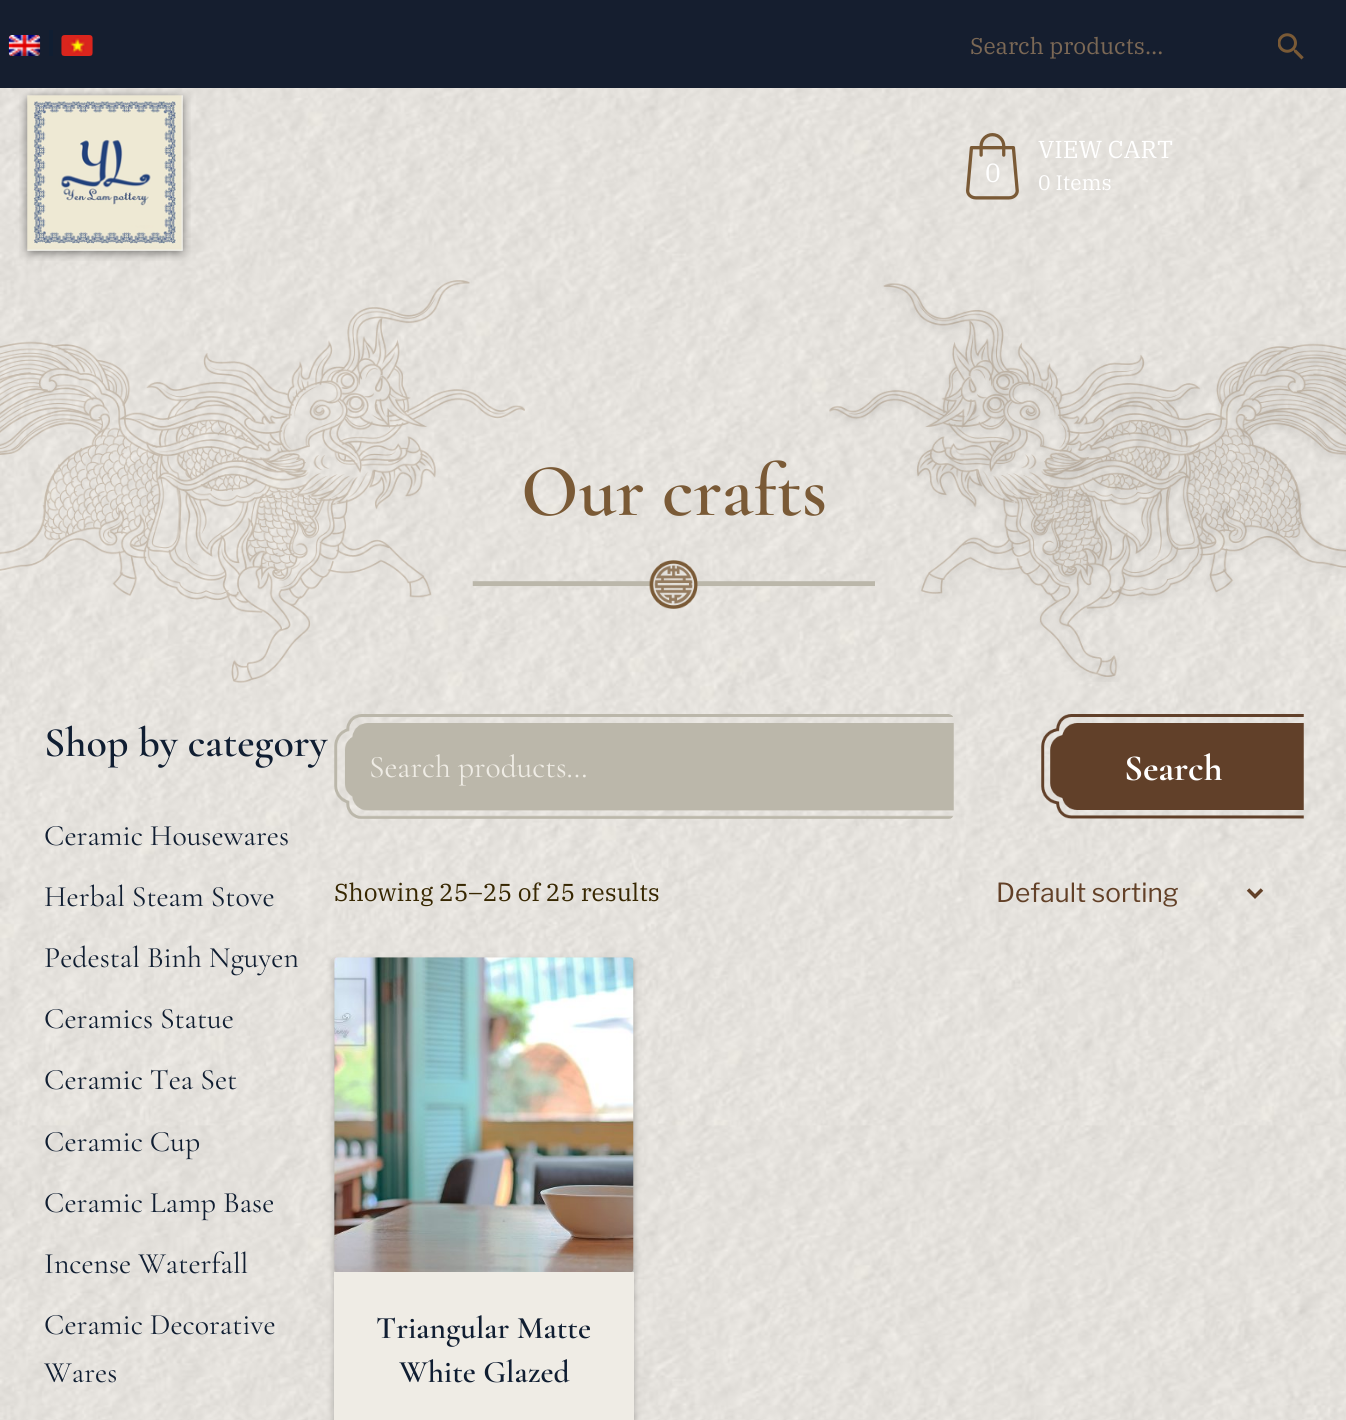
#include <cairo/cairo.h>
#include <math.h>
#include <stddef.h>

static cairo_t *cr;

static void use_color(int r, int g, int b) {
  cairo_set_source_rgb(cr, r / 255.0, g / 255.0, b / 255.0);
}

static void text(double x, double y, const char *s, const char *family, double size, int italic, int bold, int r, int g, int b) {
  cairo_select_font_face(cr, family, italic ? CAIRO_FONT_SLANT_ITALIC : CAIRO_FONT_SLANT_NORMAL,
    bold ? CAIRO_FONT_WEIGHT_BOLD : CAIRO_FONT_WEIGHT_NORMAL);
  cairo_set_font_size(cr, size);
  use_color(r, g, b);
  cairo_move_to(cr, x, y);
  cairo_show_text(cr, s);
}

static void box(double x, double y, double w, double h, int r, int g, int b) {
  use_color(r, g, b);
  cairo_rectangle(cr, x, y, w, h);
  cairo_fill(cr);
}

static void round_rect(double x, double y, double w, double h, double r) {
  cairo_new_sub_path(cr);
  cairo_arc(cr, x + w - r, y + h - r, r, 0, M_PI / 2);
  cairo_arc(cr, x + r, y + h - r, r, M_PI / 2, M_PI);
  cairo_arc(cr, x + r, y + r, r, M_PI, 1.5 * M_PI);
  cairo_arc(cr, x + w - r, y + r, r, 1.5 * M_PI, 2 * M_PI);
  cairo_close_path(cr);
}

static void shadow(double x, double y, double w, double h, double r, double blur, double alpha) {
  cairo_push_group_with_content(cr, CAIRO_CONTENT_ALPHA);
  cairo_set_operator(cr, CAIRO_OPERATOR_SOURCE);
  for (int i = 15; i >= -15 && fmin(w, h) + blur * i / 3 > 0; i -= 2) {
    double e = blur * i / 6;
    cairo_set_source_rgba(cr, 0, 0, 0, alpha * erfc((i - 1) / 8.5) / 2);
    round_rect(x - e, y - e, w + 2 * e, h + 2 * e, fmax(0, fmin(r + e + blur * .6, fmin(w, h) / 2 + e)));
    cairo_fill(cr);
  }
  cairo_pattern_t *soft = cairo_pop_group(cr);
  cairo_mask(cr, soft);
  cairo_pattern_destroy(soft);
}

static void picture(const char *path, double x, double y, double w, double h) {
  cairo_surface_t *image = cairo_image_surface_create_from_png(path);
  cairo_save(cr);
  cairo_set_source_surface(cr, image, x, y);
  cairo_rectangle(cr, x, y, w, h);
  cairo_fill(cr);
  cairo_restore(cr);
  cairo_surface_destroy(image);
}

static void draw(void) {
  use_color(255, 255, 255);
  cairo_paint(cr);
  picture("img_01.png", 0, 88, 1346, 1332);
  box(0, 0, 1346, 88, 21, 30, 47);
  box(49, 30, 4, 26, 16, 30, 50);
  picture("img_02.png", 8, 35, 33, 21);
  picture("img_03.png", 61, 35, 32, 21);
  picture("img_04.png", 1278, 33, 26, 27);
  picture("img_05.png", 19, 89, 172, 172);
  picture("img_06.png", 966, 133, 53, 67);
  picture("img_09.png", 472, 560, 403, 49);
  picture("img_08.png", 829, 283, 517, 399);
  picture("img_10.png", 334, 714, 620, 105);
  picture("img_11.png", 1041, 714, 263, 105);
  cairo_new_path(cr);
  cairo_move_to(cr, 1248, 889.5);
  cairo_line_to(cr, 1255, 896.5);
  cairo_line_to(cr, 1262, 889.5);
  use_color(98, 64, 39);
  cairo_set_line_width(cr, 3.5);
  cairo_stroke(cr);
  use_color(0, 0, 0);
  shadow(334, 961, 300, 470, 0, 3.5, 0.25);
  picture("img_12.png", 334, 957, 300, 315);
  box(334, 1272, 300, 148, 239, 236, 229);
  text(970, 54, "Search products…", "IBM Plex Serif", 22.75, 0, 0, 123, 104, 85);
  text(985, 182, "0", "IBM Plex Serif", 26.25, 0, 0, 255, 255, 255);
  text(1038, 158, "VIEW CART", "IBM Plex Serif", 24.5, 0, 0, 255, 255, 255);
  text(1038, 190, "0 Items", "IBM Plex Serif", 21, 0, 0, 255, 255, 255);
  text(521, 515, "Our crafts", "Cormorant Garamond SemiBold", 75.25, 0, 0, 122, 90, 54);
  picture("img_07.png", 0, 280, 525, 403);
  text(44, 756, "Shop by category", "Cormorant Garamond SemiBold", 42, 0, 0, 16, 30, 50);
  text(44, 845, "Ceramic Housewares", "Cormorant Garamond", 29.75, 0, 0, 16, 30, 50);
  text(44, 906, "Herbal Steam Stove", "Cormorant Garamond", 29.75, 0, 0, 16, 30, 50);
  text(44, 967, "Pedestal Binh Nguyen", "Cormorant Garamond", 29.75, 0, 0, 16, 30, 50);
  text(44, 1028, "Ceramics Statue", "Cormorant Garamond", 29.75, 0, 0, 16, 30, 50);
  text(44, 1089, "Ceramic Tea Set", "Cormorant Garamond", 29.75, 0, 0, 16, 30, 50);
  text(44, 1151, "Ceramic Cup", "Cormorant Garamond", 29.75, 0, 0, 16, 30, 50);
  text(44, 1212, "Ceramic Lamp Base", "Cormorant Garamond", 29.75, 0, 0, 16, 30, 50);
  text(44, 1273, "Incense Waterfall", "Cormorant Garamond", 29.75, 0, 0, 16, 30, 50);
  text(44, 1334, "Ceramic Decorative", "Cormorant Garamond", 29.75, 0, 0, 16, 30, 50);
  text(44, 1382, "Wares", "Cormorant Garamond", 29.75, 0, 0, 16, 30, 50);
  text(369, 777, "Search products…", "Cormorant Garamond", 31.5, 0, 0, 239, 236, 229);
  text(1124, 780, "Search", "Cormorant Garamond", 37, 0, 1, 255, 255, 255);
  text(334, 901, "Showing 25–25 of 25 results", "IBM Plex Serif", 24.5, 0, 0, 55, 39, 1);
  text(996, 902, "Default sorting", "Libre Franklin", 26.25, 0, 0, 98, 64, 39);
  text(376, 1338, "Triangular Matte", "Cormorant Garamond SemiBold", 31.5, 0, 0, 16, 30, 50);
  text(399, 1382, "White Glazed", "Cormorant Garamond SemiBold", 31.5, 0, 0, 16, 30, 50);
}

int main(void) {
  cairo_surface_t *surface = cairo_image_surface_create(CAIRO_FORMAT_RGB24, 1346, 1420);
  cr = cairo_create(surface);
  cairo_font_options_t *options = cairo_font_options_create();
  cairo_font_options_set_hint_metrics(options, CAIRO_HINT_METRICS_OFF);
  cairo_font_options_set_hint_style(options, CAIRO_HINT_STYLE_NONE);
  cairo_set_font_options(cr, options);
  cairo_set_miter_limit(cr, 4);
  draw();
  cairo_surface_write_to_png(surface, "out.png");
  cairo_font_options_destroy(options);
  cairo_destroy(cr);
  cairo_surface_destroy(surface);
  return 0;
}
